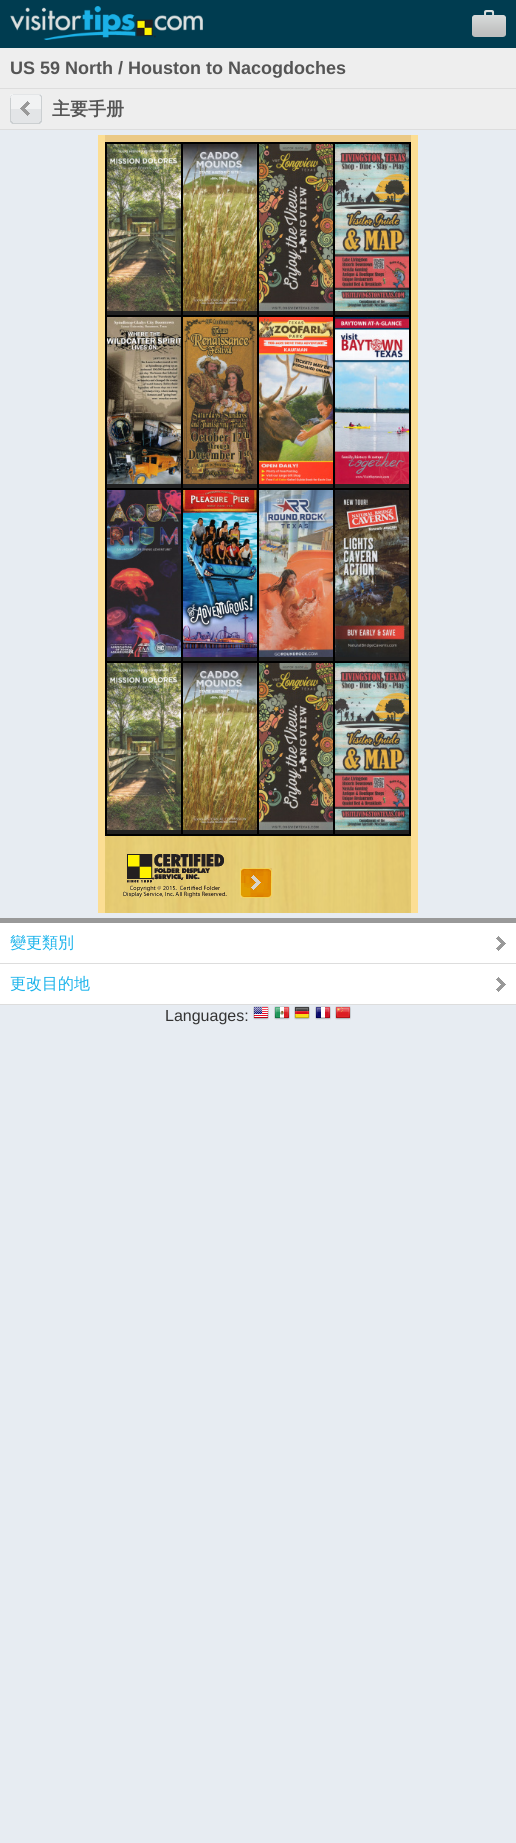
#include <cairo/cairo.h>
#include <math.h>
#include <stddef.h>

static cairo_t *cr;

static void use_color(int r, int g, int b) {
  cairo_set_source_rgb(cr, r / 255.0, g / 255.0, b / 255.0);
}

static void text(double x, double y, const char *s, const char *family, double size, int italic, int bold, int r, int g, int b) {
  cairo_select_font_face(cr, family, italic ? CAIRO_FONT_SLANT_ITALIC : CAIRO_FONT_SLANT_NORMAL,
    bold ? CAIRO_FONT_WEIGHT_BOLD : CAIRO_FONT_WEIGHT_NORMAL);
  cairo_set_font_size(cr, size);
  use_color(r, g, b);
  cairo_move_to(cr, x, y);
  cairo_show_text(cr, s);
}

static void box(double x, double y, double w, double h, int r, int g, int b) {
  use_color(r, g, b);
  cairo_rectangle(cr, x, y, w, h);
  cairo_fill(cr);
}

static void picture(const char *path, double x, double y, double w, double h) {
  cairo_surface_t *image = cairo_image_surface_create_from_png(path);
  cairo_save(cr);
  cairo_set_source_surface(cr, image, x, y);
  cairo_rectangle(cr, x, y, w, h);
  cairo_fill(cr);
  cairo_restore(cr);
  cairo_surface_destroy(image);
}

static void draw(void) {
  use_color(231, 236, 242);
  cairo_paint(cr);
  box(0, 0, 516, 48, 0, 60, 80);
  picture("img_01.png", 10, 6, 193, 34);
  picture("img_02.png", 472, 10, 34, 27);
  box(0, 48, 516, 40, 238, 238, 238);
  box(0, 88, 516, 1, 221, 221, 221);
  box(0, 89, 516, 40, 238, 238, 238);
  box(0, 129, 516, 1, 221, 221, 221);
  picture("img_03.png", 10, 94, 32, 30);
  box(98, 135, 7, 778, 252, 222, 148);
  box(105, 135, 306, 7, 234, 201, 134);
  box(411, 135, 7, 778, 252, 222, 148);
  box(105, 142, 306, 694, 0, 0, 0);
  box(107, 311, 74, 4, 34, 34, 34);
  picture("img_04.png", 107, 144, 74, 167);
  box(183, 311, 74, 4, 34, 34, 34);
  picture("img_05.png", 183, 144, 74, 167);
  box(259, 311, 74, 4, 34, 34, 34);
  picture("img_06.png", 259, 144, 74, 167);
  box(335, 311, 74, 4, 34, 34, 34);
  picture("img_07.png", 335, 144, 74, 167);
  box(107, 484, 74, 4, 34, 34, 34);
  picture("img_08.png", 107, 317, 74, 167);
  box(183, 484, 74, 4, 34, 34, 34);
  picture("img_09.png", 183, 317, 74, 167);
  box(259, 484, 74, 4, 34, 34, 34);
  picture("img_10.png", 259, 317, 74, 167);
  box(335, 484, 74, 4, 34, 34, 34);
  picture("img_11.png", 335, 317, 74, 167);
  box(107, 657, 74, 4, 34, 34, 34);
  picture("img_12.png", 107, 490, 74, 167);
  box(183, 657, 74, 4, 34, 34, 34);
  picture("img_13.png", 183, 490, 74, 167);
  box(259, 657, 74, 4, 34, 34, 34);
  picture("img_14.png", 259, 490, 74, 167);
  box(335, 657, 74, 4, 34, 34, 34);
  picture("img_15.png", 335, 490, 74, 167);
  box(107, 830, 74, 4, 34, 34, 34);
  picture("img_04.png", 107, 663, 74, 167);
  box(183, 830, 74, 4, 34, 34, 34);
  picture("img_16.png", 183, 663, 74, 167);
  box(259, 830, 74, 4, 34, 34, 34);
  picture("img_17.png", 259, 663, 74, 167);
  box(335, 830, 74, 4, 34, 34, 34);
  picture("img_07.png", 335, 663, 74, 167);
  picture("img_18.png", 105, 836, 306, 77);
  picture("img_19.png", 123, 854, 104, 44);
  picture("img_20.png", 240, 868, 32, 30);
  box(0, 918, 516, 5, 153, 153, 153);
  box(0, 923, 516, 40, 255, 255, 255);
  box(0, 963, 516, 1, 221, 221, 221);
  picture("img_21.png", 496, 936, 10, 15);
  box(0, 964, 516, 40, 255, 255, 255);
  box(0, 1004, 516, 1, 221, 221, 221);
  picture("img_21.png", 496, 977, 10, 15);
  picture("img_22.png", 253, 1006, 16, 14);
  picture("img_23.png", 274, 1006, 16, 14);
  picture("img_24.png", 294, 1006, 16, 14);
  picture("img_25.png", 315, 1006, 16, 14);
  picture("img_26.png", 335, 1006, 16, 14);
  text(10, 74, "US 59 North / Houston to Nacogdoches", "Liberation Sans", 18, 0, 1, 85, 85, 85);
  text(52, 115, "主要手册", "WenQuanYi Zen Hei", 18, 0, 1, 85, 85, 85);
  text(10, 948, "變更類別", "WenQuanYi Zen Hei Medium", 16, 0, 0, 26, 179, 235);
  text(10, 989, "更改目的地", "WenQuanYi Zen Hei Medium", 16, 0, 0, 26, 179, 235);
  text(165, 1021, "Languages:", "Liberation Sans", 16, 0, 0, 51, 51, 51);
}

int main(void) {
  cairo_surface_t *surface = cairo_image_surface_create(CAIRO_FORMAT_RGB24, 516, 1843);
  cr = cairo_create(surface);
  cairo_font_options_t *options = cairo_font_options_create();
  cairo_font_options_set_hint_metrics(options, CAIRO_HINT_METRICS_OFF);
  cairo_font_options_set_hint_style(options, CAIRO_HINT_STYLE_NONE);
  cairo_set_font_options(cr, options);
  cairo_set_miter_limit(cr, 4);
  draw();
  cairo_surface_write_to_png(surface, "out.png");
  cairo_font_options_destroy(options);
  cairo_destroy(cr);
  cairo_surface_destroy(surface);
  return 0;
}
